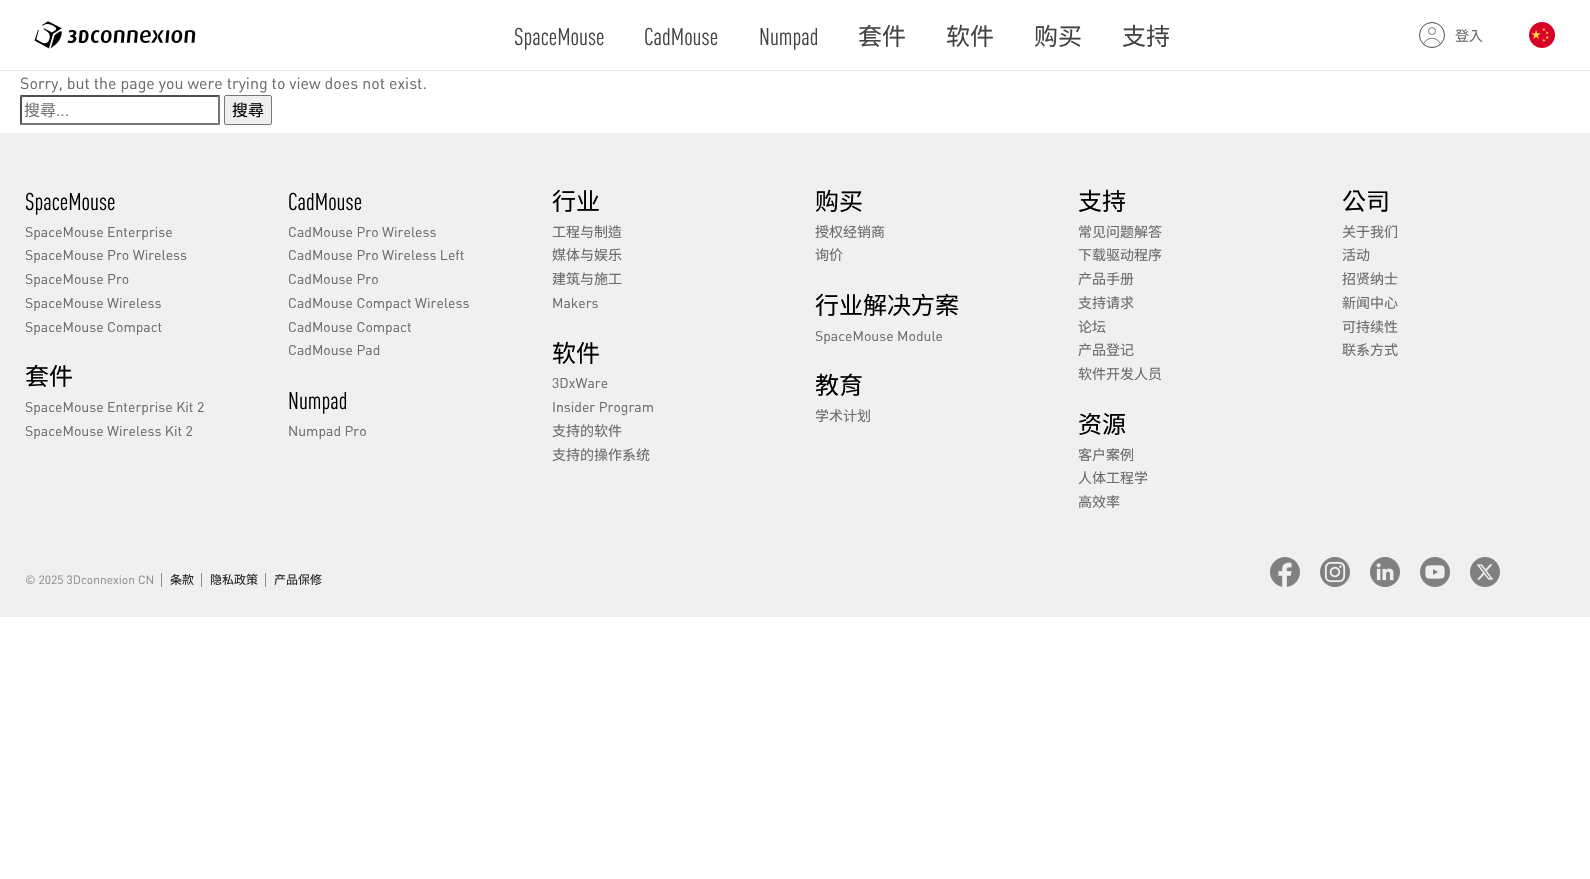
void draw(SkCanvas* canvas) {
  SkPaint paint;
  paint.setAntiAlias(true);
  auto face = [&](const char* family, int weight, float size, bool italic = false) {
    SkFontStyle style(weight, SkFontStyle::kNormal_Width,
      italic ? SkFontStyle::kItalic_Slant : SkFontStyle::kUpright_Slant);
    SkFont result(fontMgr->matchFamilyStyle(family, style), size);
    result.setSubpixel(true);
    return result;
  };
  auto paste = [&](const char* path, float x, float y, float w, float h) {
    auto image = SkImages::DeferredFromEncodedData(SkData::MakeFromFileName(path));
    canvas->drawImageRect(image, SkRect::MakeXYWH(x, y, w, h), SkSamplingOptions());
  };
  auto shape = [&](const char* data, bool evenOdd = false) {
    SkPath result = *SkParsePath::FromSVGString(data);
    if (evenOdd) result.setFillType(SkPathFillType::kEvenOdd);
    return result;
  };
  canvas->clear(0xffffffff);
  paint.setColor(0xffe6e6e6);
  canvas->drawRect(SkRect::MakeXYWH(0, 70, 1590, 1), paint);
  paste("img/1.png", 34, 21, 162, 28);
  paint.setStroke(true);
  paint.setStrokeWidth(1);
  paint.setColor(0xff444c4c);
  canvas->drawCircle(1432, 35, 12.5f, paint);
  paint.setStrokeWidth(0.7f);
  canvas->drawCircle(1432, 31, 3.5f, paint);
  canvas->drawPath(shape("M1423.5 44C1426.5 36.5 1437.5 36.5 1440.5 44"), paint);
  paste("img/2.png", 1529, 22, 26, 26);
  paint.setStroke(false);
  paint.setColor(0xff4f4f4f);
  canvas->drawPath(shape("M20 95H220L218 97H22Z"), paint);
  paint.setColor(0xff767676);
  canvas->drawPath(shape("M220 95V125L218 123V97Z"), paint);
  canvas->drawPath(shape("M220 125H20L22 123H218Z"), paint);
  paint.setColor(0xff4f4f4f);
  canvas->drawPath(shape("M20 125V95L22 97V123Z"), paint);
  paint.setColor(0xffefefef);
  canvas->drawRoundRect(SkRect::MakeXYWH(224.5f, 95.5f, 47, 29), 1.5f, 1.5f, paint);
  paint.setStroke(true);
  paint.setStrokeWidth(1);
  paint.setColor(0xff767676);
  canvas->drawRoundRect(SkRect::MakeXYWH(224.5f, 95.5f, 47, 29), 1.5f, 1.5f, paint);
  paint.setStroke(false);
  {
    const struct { float x, y, w, h; SkColor color; } items[] = {
      {0, 133, 1590, 484, 0xfff0f0f0},
      {161, 573, 1, 14, 0xff909090},
      {201, 573, 1, 14, 0xff909090},
      {265, 573, 1, 14, 0xff909090},
    };
    for (auto [x, y, w, h, color] : items) {
      paint.setColor(color);
      canvas->drawRect(SkRect::MakeXYWH(x, y, w, h), paint);
    }
  }
  paste("img/3.png", 1270, 557, 30, 30);
  paste("img/4.png", 1320, 557, 30, 30);
  paste("img/5.png", 1370, 557, 30, 30);
  paste("img/6.png", 1420, 557, 30, 30);
  paste("img/7.png", 1470, 557, 30, 30);
  auto f0 = face("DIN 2", 400, 24);
  paint.setColor(0xff444444);
  {
    const struct { const char* s; float x, y; } items[] = {
      {"SpaceMouse", 514, 45},
      {"CadMouse", 644, 45},
      {"Numpad", 759, 45},
    };
    for (auto [s, x, y] : items) {
      canvas->drawString(s, x, y, f0, paint);
    }
  }
  auto f1 = face("Noto Sans CJK TC", 400, 24);
  {
    const struct { const char* s; float x, y; } items[] = {
      {"套件", 858, 45},
      {"软件", 946, 45},
      {"购买", 1034, 45},
      {"支持", 1122, 45},
    };
    for (auto [s, x, y] : items) {
      canvas->drawString(s, x, y, f1, paint);
    }
  }
  auto f2 = face("Noto Sans CJK TC", 400, 14);
  paint.setColor(0xff6b6b6b);
  canvas->drawString("登入", 1455, 41, f2, paint);
  auto f3 = face("DIN", 400, 16);
  canvas->drawString("Sorry, but the page you were trying to view does not exist.", 20, 89, f3, paint);
  auto f4 = face("Noto Sans CJK TC", 400, 16);
  paint.setColor(0xff757575);
  canvas->drawString("搜尋", 24, 116, f4, paint);
  canvas->drawString("...", 56, 116, f3, paint);
  paint.setColor(0xff000000);
  canvas->drawString("搜尋", 232, 116, f4, paint);
  canvas->drawString("SpaceMouse", 25, 210, f0, paint);
  auto f5 = face("DIN", 400, 14);
  paint.setColor(0xff6b6b6b);
  {
    const struct { const char* s; float x, y; } items[] = {
      {"SpaceMouse Enterprise", 25, 237},
      {"SpaceMouse Pro Wireless", 25, 260},
      {"SpaceMouse Pro", 25, 284},
      {"SpaceMouse Wireless", 25, 308},
      {"SpaceMouse Compact", 25, 332},
    };
    for (auto [s, x, y] : items) {
      canvas->drawString(s, x, y, f5, paint);
    }
  }
  paint.setColor(0xff000000);
  canvas->drawString("套件", 25, 385, f1, paint);
  paint.setColor(0xff6b6b6b);
  canvas->drawString("SpaceMouse Enterprise Kit 2", 25, 412, f5, paint);
  canvas->drawString("SpaceMouse Wireless Kit 2", 25, 436, f5, paint);
  paint.setColor(0xff000000);
  canvas->drawString("CadMouse", 288, 210, f0, paint);
  paint.setColor(0xff6b6b6b);
  {
    const struct { const char* s; float x, y; } items[] = {
      {"CadMouse Pro Wireless", 288, 237},
      {"CadMouse Pro Wireless Left", 288, 260},
      {"CadMouse Pro", 288, 284},
      {"CadMouse Compact Wireless", 288, 308},
      {"CadMouse Compact", 288, 332},
      {"CadMouse Pad", 288, 355},
    };
    for (auto [s, x, y] : items) {
      canvas->drawString(s, x, y, f5, paint);
    }
  }
  paint.setColor(0xff000000);
  canvas->drawString("Numpad", 288, 409, f0, paint);
  paint.setColor(0xff6b6b6b);
  canvas->drawString("Numpad Pro", 288, 436, f5, paint);
  paint.setColor(0xff000000);
  canvas->drawString("行业", 552, 210, f1, paint);
  paint.setColor(0xff6b6b6b);
  {
    const struct { const char* s; float x, y; } items[] = {
      {"工程与制造", 552, 237},
      {"媒体与娱乐", 552, 260},
      {"建筑与施工", 552, 284},
    };
    for (auto [s, x, y] : items) {
      canvas->drawString(s, x, y, f2, paint);
    }
  }
  canvas->drawString("Makers", 552, 308, f5, paint);
  paint.setColor(0xff000000);
  canvas->drawString("软件", 552, 362, f1, paint);
  paint.setColor(0xff6b6b6b);
  canvas->drawString("3DxWare", 552, 388, f5, paint);
  canvas->drawString("Insider Program", 552, 412, f5, paint);
  canvas->drawString("支持的软件", 552, 436, f2, paint);
  canvas->drawString("支持的操作系统", 552, 460, f2, paint);
  paint.setColor(0xff000000);
  canvas->drawString("购买", 815, 210, f1, paint);
  paint.setColor(0xff6b6b6b);
  canvas->drawString("授权经销商", 815, 237, f2, paint);
  canvas->drawString("询价", 815, 260, f2, paint);
  paint.setColor(0xff000000);
  canvas->drawString("行业解决方案", 815, 314, f1, paint);
  paint.setColor(0xff6b6b6b);
  canvas->drawString("SpaceMouse Module", 815, 341, f5, paint);
  paint.setColor(0xff000000);
  canvas->drawString("教育", 815, 394, f1, paint);
  paint.setColor(0xff6b6b6b);
  canvas->drawString("学术计划", 815, 421, f2, paint);
  paint.setColor(0xff000000);
  canvas->drawString("支持", 1078, 210, f1, paint);
  paint.setColor(0xff6b6b6b);
  {
    const struct { const char* s; float x, y; } items[] = {
      {"常见问题解答", 1078, 237},
      {"下载驱动程序", 1078, 260},
      {"产品手册", 1078, 284},
      {"支持请求", 1078, 308},
      {"论坛", 1078, 332},
      {"产品登记", 1078, 355},
      {"软件开发人员", 1078, 379},
    };
    for (auto [s, x, y] : items) {
      canvas->drawString(s, x, y, f2, paint);
    }
  }
  paint.setColor(0xff000000);
  canvas->drawString("资源", 1078, 433, f1, paint);
  paint.setColor(0xff6b6b6b);
  {
    const struct { const char* s; float x, y; } items[] = {
      {"客户案例", 1078, 460},
      {"人体工程学", 1078, 483},
      {"高效率", 1078, 507},
    };
    for (auto [s, x, y] : items) {
      canvas->drawString(s, x, y, f2, paint);
    }
  }
  paint.setColor(0xff000000);
  canvas->drawString("公司", 1342, 210, f1, paint);
  paint.setColor(0xff6b6b6b);
  {
    const struct { const char* s; float x, y; } items[] = {
      {"关于我们", 1342, 237},
      {"活动", 1342, 260},
      {"招贤纳士", 1342, 284},
      {"新闻中心", 1342, 308},
      {"可持续性", 1342, 332},
      {"联系方式", 1342, 355},
    };
    for (auto [s, x, y] : items) {
      canvas->drawString(s, x, y, f2, paint);
    }
  }
  auto f6 = face("DIN", 400, 12);
  paint.setColor(0xff909090);
  canvas->drawString("© 2025 3Dconnexion CN", 25, 584, f6, paint);
  auto f7 = face("Noto Sans CJK TC", 400, 12);
  paint.setColor(0xff222222);
  {
    const struct { const char* s; float x, y; } items[] = {
      {"条款", 170, 584},
      {"隐私政策", 210, 584},
      {"产品保修", 274, 584},
    };
    for (auto [s, x, y] : items) {
      canvas->drawString(s, x, y, f7, paint);
    }
  }
}
